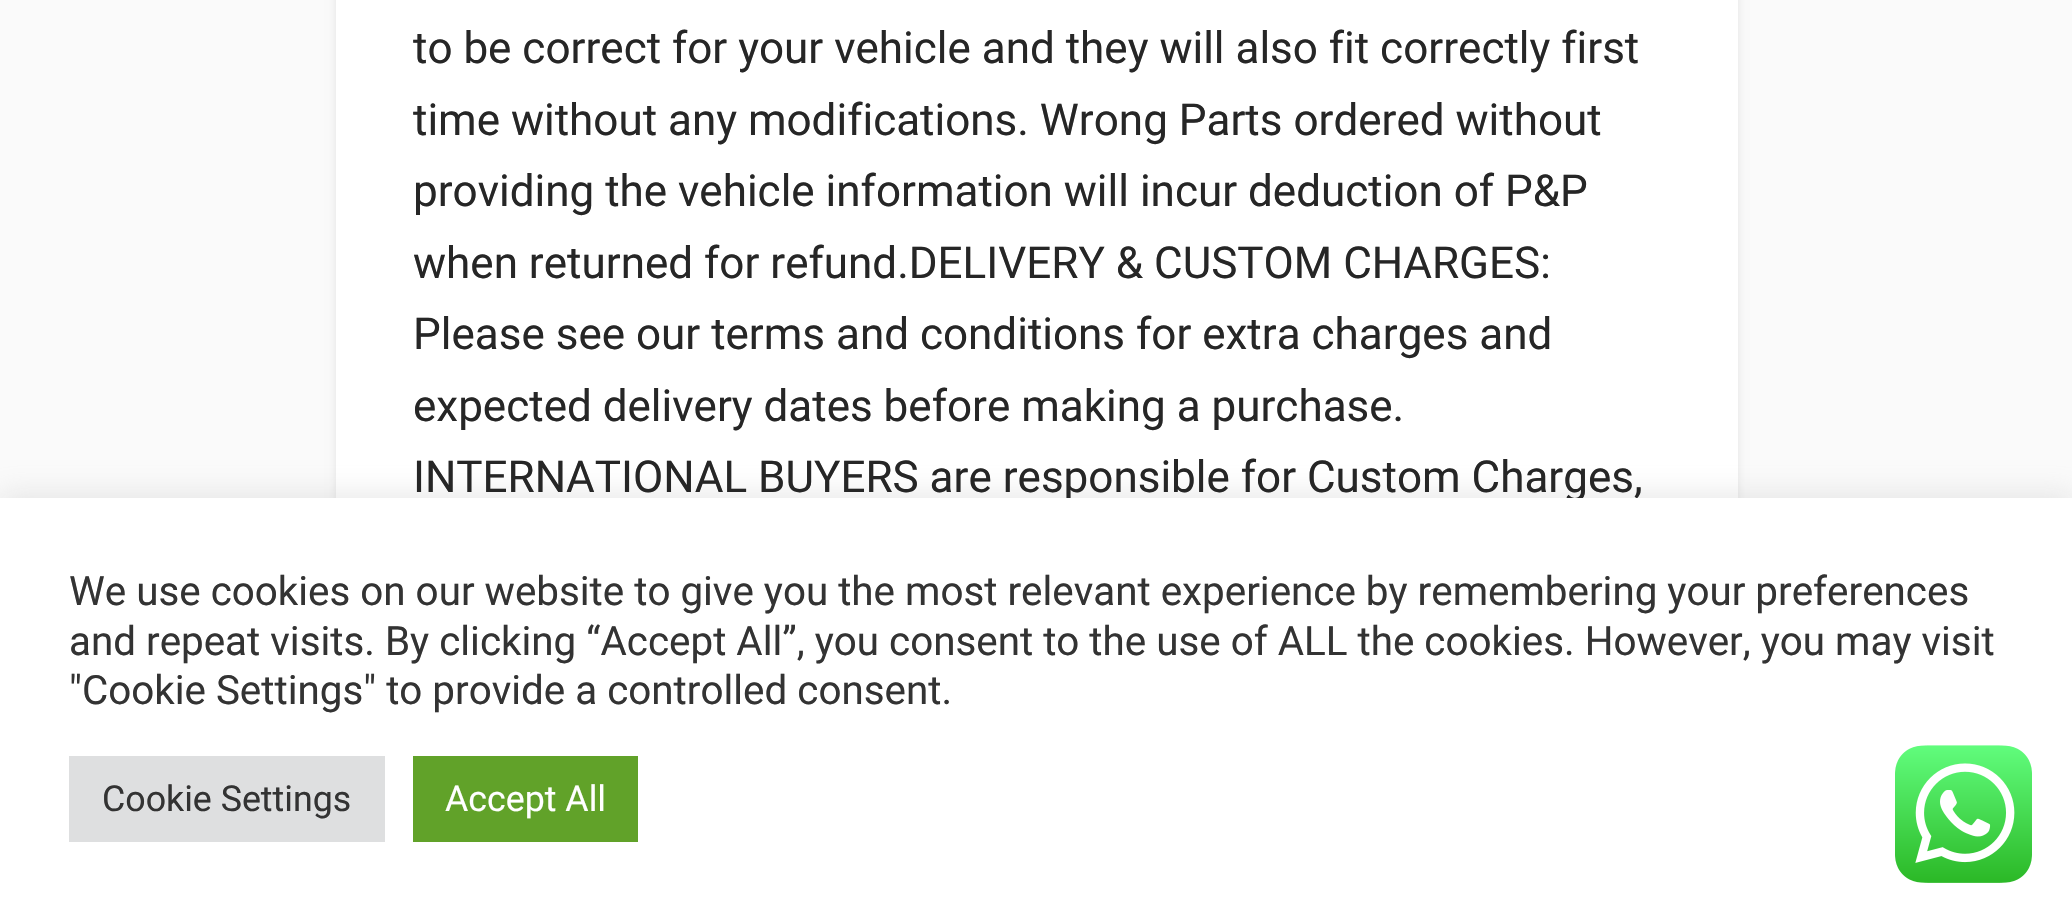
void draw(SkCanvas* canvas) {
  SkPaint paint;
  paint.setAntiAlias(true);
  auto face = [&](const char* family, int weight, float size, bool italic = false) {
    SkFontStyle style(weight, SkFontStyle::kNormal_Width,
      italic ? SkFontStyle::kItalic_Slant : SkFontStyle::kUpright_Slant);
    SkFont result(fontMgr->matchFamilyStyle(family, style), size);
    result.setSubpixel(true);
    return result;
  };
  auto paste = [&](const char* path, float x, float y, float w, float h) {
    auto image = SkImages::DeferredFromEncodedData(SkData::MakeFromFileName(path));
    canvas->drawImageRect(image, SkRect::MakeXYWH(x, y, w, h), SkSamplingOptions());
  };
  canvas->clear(0xfffafafa);
  paint.setColor(0x17000000);
  paint.setMaskFilter(SkMaskFilter::MakeBlur(kNormal_SkBlurStyle, 4));
  canvas->drawRect(SkRect::MakeXYWH(336, -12, 1402, 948), paint);
  paint.setMaskFilter(nullptr);
  paint.setColor(0xffffffff);
  canvas->drawRect(SkRect::MakeXYWH(336, 0, 1402, 498), paint);
  paint.setColor(0x4dacabab);
  paint.setMaskFilter(SkMaskFilter::MakeBlur(kNormal_SkBlurStyle, 14));
  canvas->drawRect(SkRect::MakeXYWH(0, 495, 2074, 426), paint);
  paint.setMaskFilter(nullptr);
  auto f0 = face("Roboto", 400, 44);
  paint.setColor(0xff262626);
  {
    const struct { const char* s; float x, y; } items[] = {
      {"to be correct for your vehicle and they will also fit correctly first", 413, 63},
      {"time without any modifications. Wrong Parts ordered without", 413, 135},
      {"providing the vehicle information will incur deduction of P&P", 413, 206},
      {"when returned for refund.DELIVERY & CUSTOM CHARGES:", 413, 278},
      {"Please see our terms and conditions for extra charges and", 413, 349},
      {"expected delivery dates before making a purchase.", 413, 421},
      {"INTERNATIONAL BUYERS are responsible for Custom Charges,", 413, 492},
    };
    for (auto [s, x, y] : items) {
      canvas->drawString(s, x, y, f0, paint);
    }
  }
  paint.setColor(0xffffffff);
  canvas->drawRect(SkRect::MakeXYWH(0, 498, 2072, 426), paint);
  auto f1 = face("Roboto", 400, 40.35f);
  paint.setColor(0xff333333);
  {
    const struct { const char* s; float x, y; } items[] = {
      {"We use cookies on our website to give you the most relevant experience by remembering your preferences", 69, 605},
      {"and repeat visits. By clicking “Accept All”, you consent to the use of ALL the cookies. However, you may visit", 69, 655},
      {"\"Cookie Settings\" to provide a controlled consent.", 69, 704},
    };
    for (auto [s, x, y] : items) {
      canvas->drawString(s, x, y, f1, paint);
    }
  }
  paint.setColor(0xffdedfe0);
  canvas->drawRect(SkRect::MakeXYWH(69, 756, 316, 86), paint);
  auto f2 = face("Roboto", 400, 35.75f);
  paint.setColor(0xff333333);
  canvas->drawString("Cookie Settings", 102, 811, f2, paint);
  paint.setColor(0xff61a229);
  canvas->drawRect(SkRect::MakeXYWH(413, 756, 225, 86), paint);
  paint.setColor(0xffffffff);
  canvas->drawString("Accept All", 445, 811, f2, paint);
  paste("img/1.png", 1895, 745, 137, 138);
}
